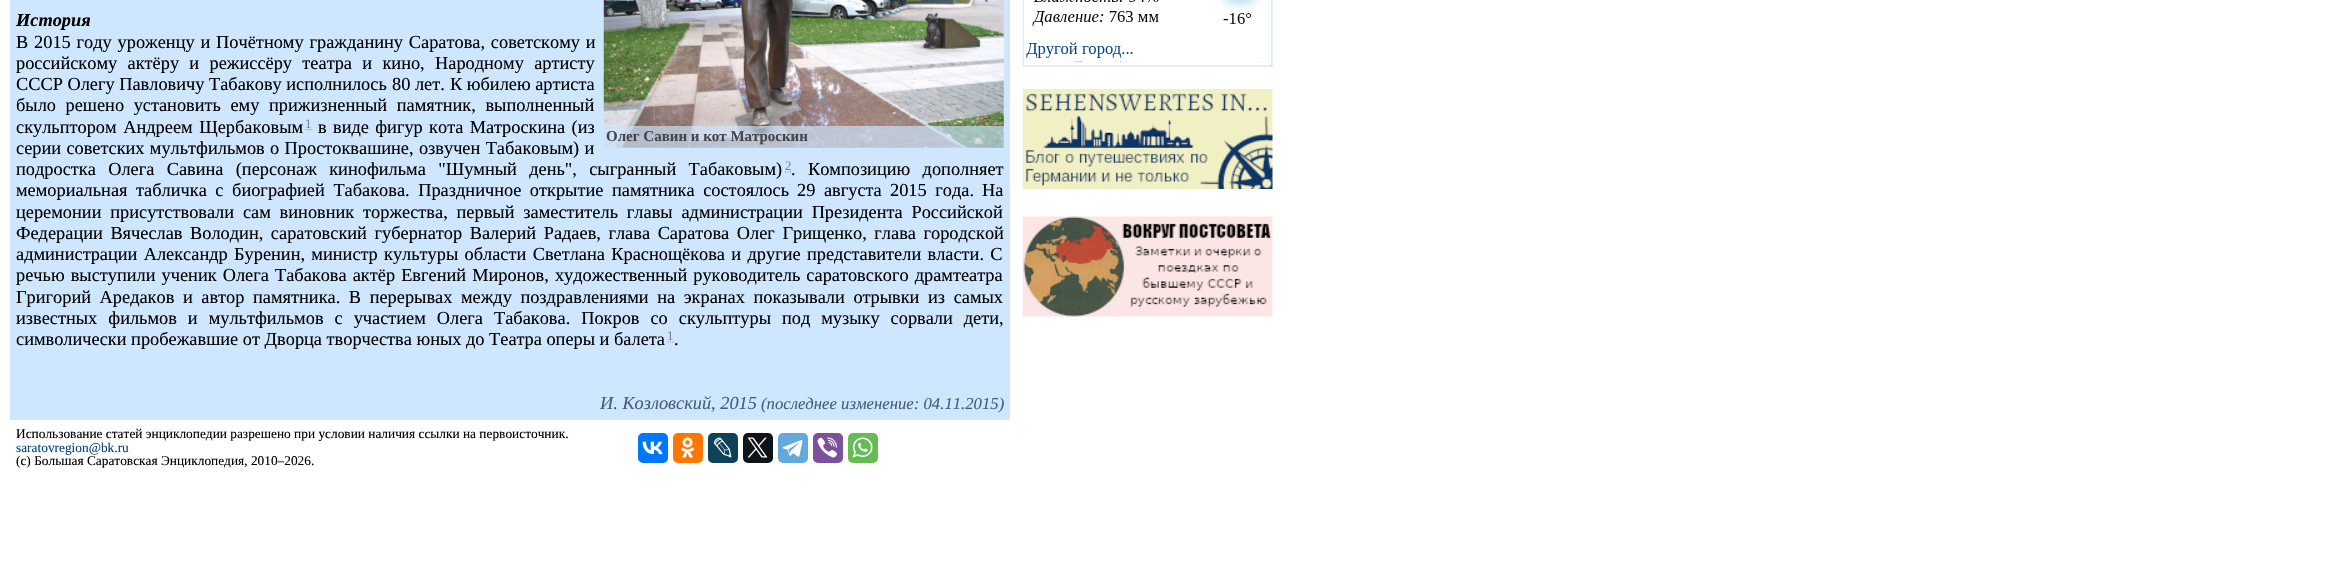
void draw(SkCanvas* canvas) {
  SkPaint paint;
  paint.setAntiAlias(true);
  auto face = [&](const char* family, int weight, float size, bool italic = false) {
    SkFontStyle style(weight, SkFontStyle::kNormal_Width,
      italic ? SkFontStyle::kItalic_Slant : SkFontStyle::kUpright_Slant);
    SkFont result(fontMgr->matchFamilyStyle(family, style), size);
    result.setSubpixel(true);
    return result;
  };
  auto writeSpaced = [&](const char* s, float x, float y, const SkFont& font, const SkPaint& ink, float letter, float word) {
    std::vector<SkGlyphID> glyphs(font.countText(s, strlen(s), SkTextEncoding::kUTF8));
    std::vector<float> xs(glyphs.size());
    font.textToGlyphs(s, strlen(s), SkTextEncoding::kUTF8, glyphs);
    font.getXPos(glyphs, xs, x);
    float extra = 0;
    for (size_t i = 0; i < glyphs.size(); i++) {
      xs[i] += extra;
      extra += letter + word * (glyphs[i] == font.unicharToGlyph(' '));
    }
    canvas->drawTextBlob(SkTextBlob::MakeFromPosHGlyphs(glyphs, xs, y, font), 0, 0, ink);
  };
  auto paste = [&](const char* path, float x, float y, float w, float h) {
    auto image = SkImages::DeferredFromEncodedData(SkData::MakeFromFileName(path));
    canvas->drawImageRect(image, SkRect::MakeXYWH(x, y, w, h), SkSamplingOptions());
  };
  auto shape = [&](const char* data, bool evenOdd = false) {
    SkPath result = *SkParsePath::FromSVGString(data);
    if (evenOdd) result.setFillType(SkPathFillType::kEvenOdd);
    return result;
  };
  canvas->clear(0xffffffff);
  paint.setColor(0xffcee7ff);
  canvas->drawRect(SkRect::MakeXYWH(10, 0, 1000, 420), paint);
  paint.setStroke(true);
  paint.setStrokeWidth(1.2f);
  paint.setColor(0xff7f7f99);
  canvas->drawPath(shape("M305.5 129.5H306.5M308 129.5H309M310.5 129.5H311.5"), paint);
  paste("img/1.png", 603, 0, 401, 148);
  paint.setStroke(false);
  paint.setColor(0xa6cee7ff);
  canvas->drawRect(SkRect::MakeXYWH(604, 126, 400, 22), paint);
  paint.setStroke(true);
  paint.setColor(0xff7f7f99);
  canvas->drawPath(shape("M785 172H786M787.5 172H788.5M790 172H791"), paint);
  canvas->drawPath(shape("M667.5 342H668.5M670 342H671M672.5 342H673.5"), paint);
  paste("img/2.png", 1022, 0, 251, 317);
  paint.setStroke(false);
  paint.setColor(0xff0077ff);
  canvas->drawRoundRect(SkRect::MakeXYWH(638, 433, 30, 30), 5, 5, paint);
  paste("img/3.png", 642, 441, 21, 14);
  paint.setColor(0xffff7700);
  canvas->drawRoundRect(SkRect::MakeXYWH(673, 433, 30, 30), 5, 5, paint);
  paste("img/4.png", 680, 437, 15, 21);
  paint.setColor(0xff0d425a);
  canvas->drawRoundRect(SkRect::MakeXYWH(708, 433, 30, 30), 5, 5, paint);
  paste("img/5.png", 713, 437, 19, 21);
  paint.setColor(0xff0f1419);
  canvas->drawRoundRect(SkRect::MakeXYWH(743, 433, 30, 30), 5, 5, paint);
  paste("img/6.png", 747, 437, 21, 21);
  paint.setColor(0xff64a9dc);
  canvas->drawRoundRect(SkRect::MakeXYWH(778, 433, 30, 30), 5, 5, paint);
  paste("img/7.png", 782, 440, 21, 17);
  paint.setColor(0xff7b519d);
  canvas->drawRoundRect(SkRect::MakeXYWH(813, 433, 30, 30), 5, 5, paint);
  paste("img/8.png", 817, 437, 20, 21);
  paint.setColor(0xff65bc54);
  canvas->drawRoundRect(SkRect::MakeXYWH(848, 433, 30, 30), 5, 5, paint);
  paste("img/9.png", 852, 437, 21, 21);
  auto f0 = face("Liberation Serif", 700, 18.33f, true);
  paint.setColor(0xff000000);
  canvas->drawString("История", 16, 26, f0, paint);
  auto f1 = face("Liberation Serif", 400, 18.33f);
  writeSpaced("В 2015 году уроженцу и Почётному гражданину Саратова, советскому и", 16, 48, f1, paint, 0, 1.25f);
  writeSpaced("российскому актёру и режиссёру театра и кино, Народному артисту", 16, 69, f1, paint, 0, 5.75f);
  {
    const struct { const char* s; float x, y; } items[] = {
      {"СССР Олегу Павловичу Табакову исполнилось", 16, 90},
      {"80 лет.", 392, 90},
      {"К юбилею артиста", 450, 90},
    };
    for (auto [s, x, y] : items) {
      canvas->drawString(s, x, y, f1, paint);
    }
  }
  writeSpaced("было решено установить ему прижизненный памятник, выполненный", 16, 111, f1, paint, 0, 5);
  writeSpaced("скульптором Андреем Щербаковым", 16, 133, f1, paint, 0, 2);
  auto f2 = face("Liberation Serif", 400, 13);
  paint.setColor(0xff7f7f99);
  canvas->drawString("1", 305, 128, f2, paint);
  paint.setColor(0xff000000);
  writeSpaced("в виде фигур кота Матроскина (из", 318, 133, f1, paint, 0, 1.75f);
  auto f3 = face("Liberation Serif", 700, 15);
  paint.setColor(0xff43474c);
  canvas->drawString("Олег Савин и кот Матроскин", 606, 141, f3, paint);
  paint.setColor(0xff000000);
  writeSpaced("серии советских мультфильмов о Простоквашине, озвучен Табаковым) и", 16, 154, f1, paint, 0, 0.75f);
  writeSpaced("подростка Олега Савина (персонаж кинофильма \"Шумный день\", сыгранный Табаковым)", 16, 175, f1, paint, 0, 7.75f);
  paint.setColor(0xff7f7f99);
  canvas->drawString("2", 785, 170, f2, paint);
  paint.setColor(0xff000000);
  writeSpaced(". Композицию дополняет", 791, 175, f1, paint, 0, 7.75f);
  {
    const struct { const char* s; float x, y; } items[] = {
      {"мемориальная табличка с биографией Табакова. Праздничное открытие памятника состоялось", 16, 196},
      {"29 августа", 797, 196},
      {"2015 года.", 890, 196},
    };
    for (auto [s, x, y] : items) {
      writeSpaced(s, x, y, f1, paint, 0, 4);
    }
  }
  canvas->drawString("На", 982, 196, f1, paint);
  writeSpaced("церемонии присутствовали сам виновник торжества, первый заместитель главы администрации Президента Российской", 16, 218, f1, paint, 0, 4.25f);
  writeSpaced("Федерации Вячеслав Володин, саратовский губернатор Валерий Радаев, глава Саратова Олег Грищенко, глава городской", 16, 239, f1, paint, 0, 3);
  writeSpaced("администрации Александр Буренин, министр культуры области Светлана Краснощёкова и другие представители власти. С", 16, 260, f1, paint, 0, 1.75f);
  writeSpaced("речью выступили ученик Олега Табакова актёр Евгений Миронов, художественный руководитель саратовского драмтеатра", 16, 281, f1, paint, 0, 1.5f);
  writeSpaced("Григорий Аредаков и автор памятника. В перерывах между поздравлениями на экранах показывали отрывки из самых", 16, 303, f1, paint, 0, 4);
  writeSpaced("известных фильмов и мультфильмов с участием Олега Табакова. Покров со скульптуры под музыку сорвали дети,", 16, 324, f1, paint, 0, 6.4f);
  canvas->drawString("символически пробежавшие от Дворца творчества юных до Театра оперы и балета", 16, 345, f1, paint);
  paint.setColor(0xff7f7f99);
  canvas->drawString("1", 667, 340, f2, paint);
  paint.setColor(0xff000000);
  canvas->drawString(".", 674, 345, f1, paint);
  auto f4 = face("Liberation Serif", 400, 18.33f, true);
  paint.setColor(0xff495a7c);
  canvas->drawString("И. Козловский, 2015", 600, 409, f4, paint);
  auto f5 = face("Liberation Serif", 400, 16.7f, true);
  canvas->drawString("(последнее изменение: 04.11.2015)", 761, 409, f5, paint);
  auto f6 = face("Liberation Serif", 400, 13.35f);
  paint.setColor(0xff000000);
  canvas->drawString("Использование статей энциклопедии разрешено при условии наличия ссылки на первоисточник.", 16, 438, f6, paint);
  paint.setColor(0xff054285);
  canvas->drawString("saratovregion@bk.ru", 16, 452, f6, paint);
  paint.setColor(0xff000000);
  canvas->drawString("(c) Большая Саратовская Энциклопедия, 2010–2026.", 16, 465, f6, paint);
}
